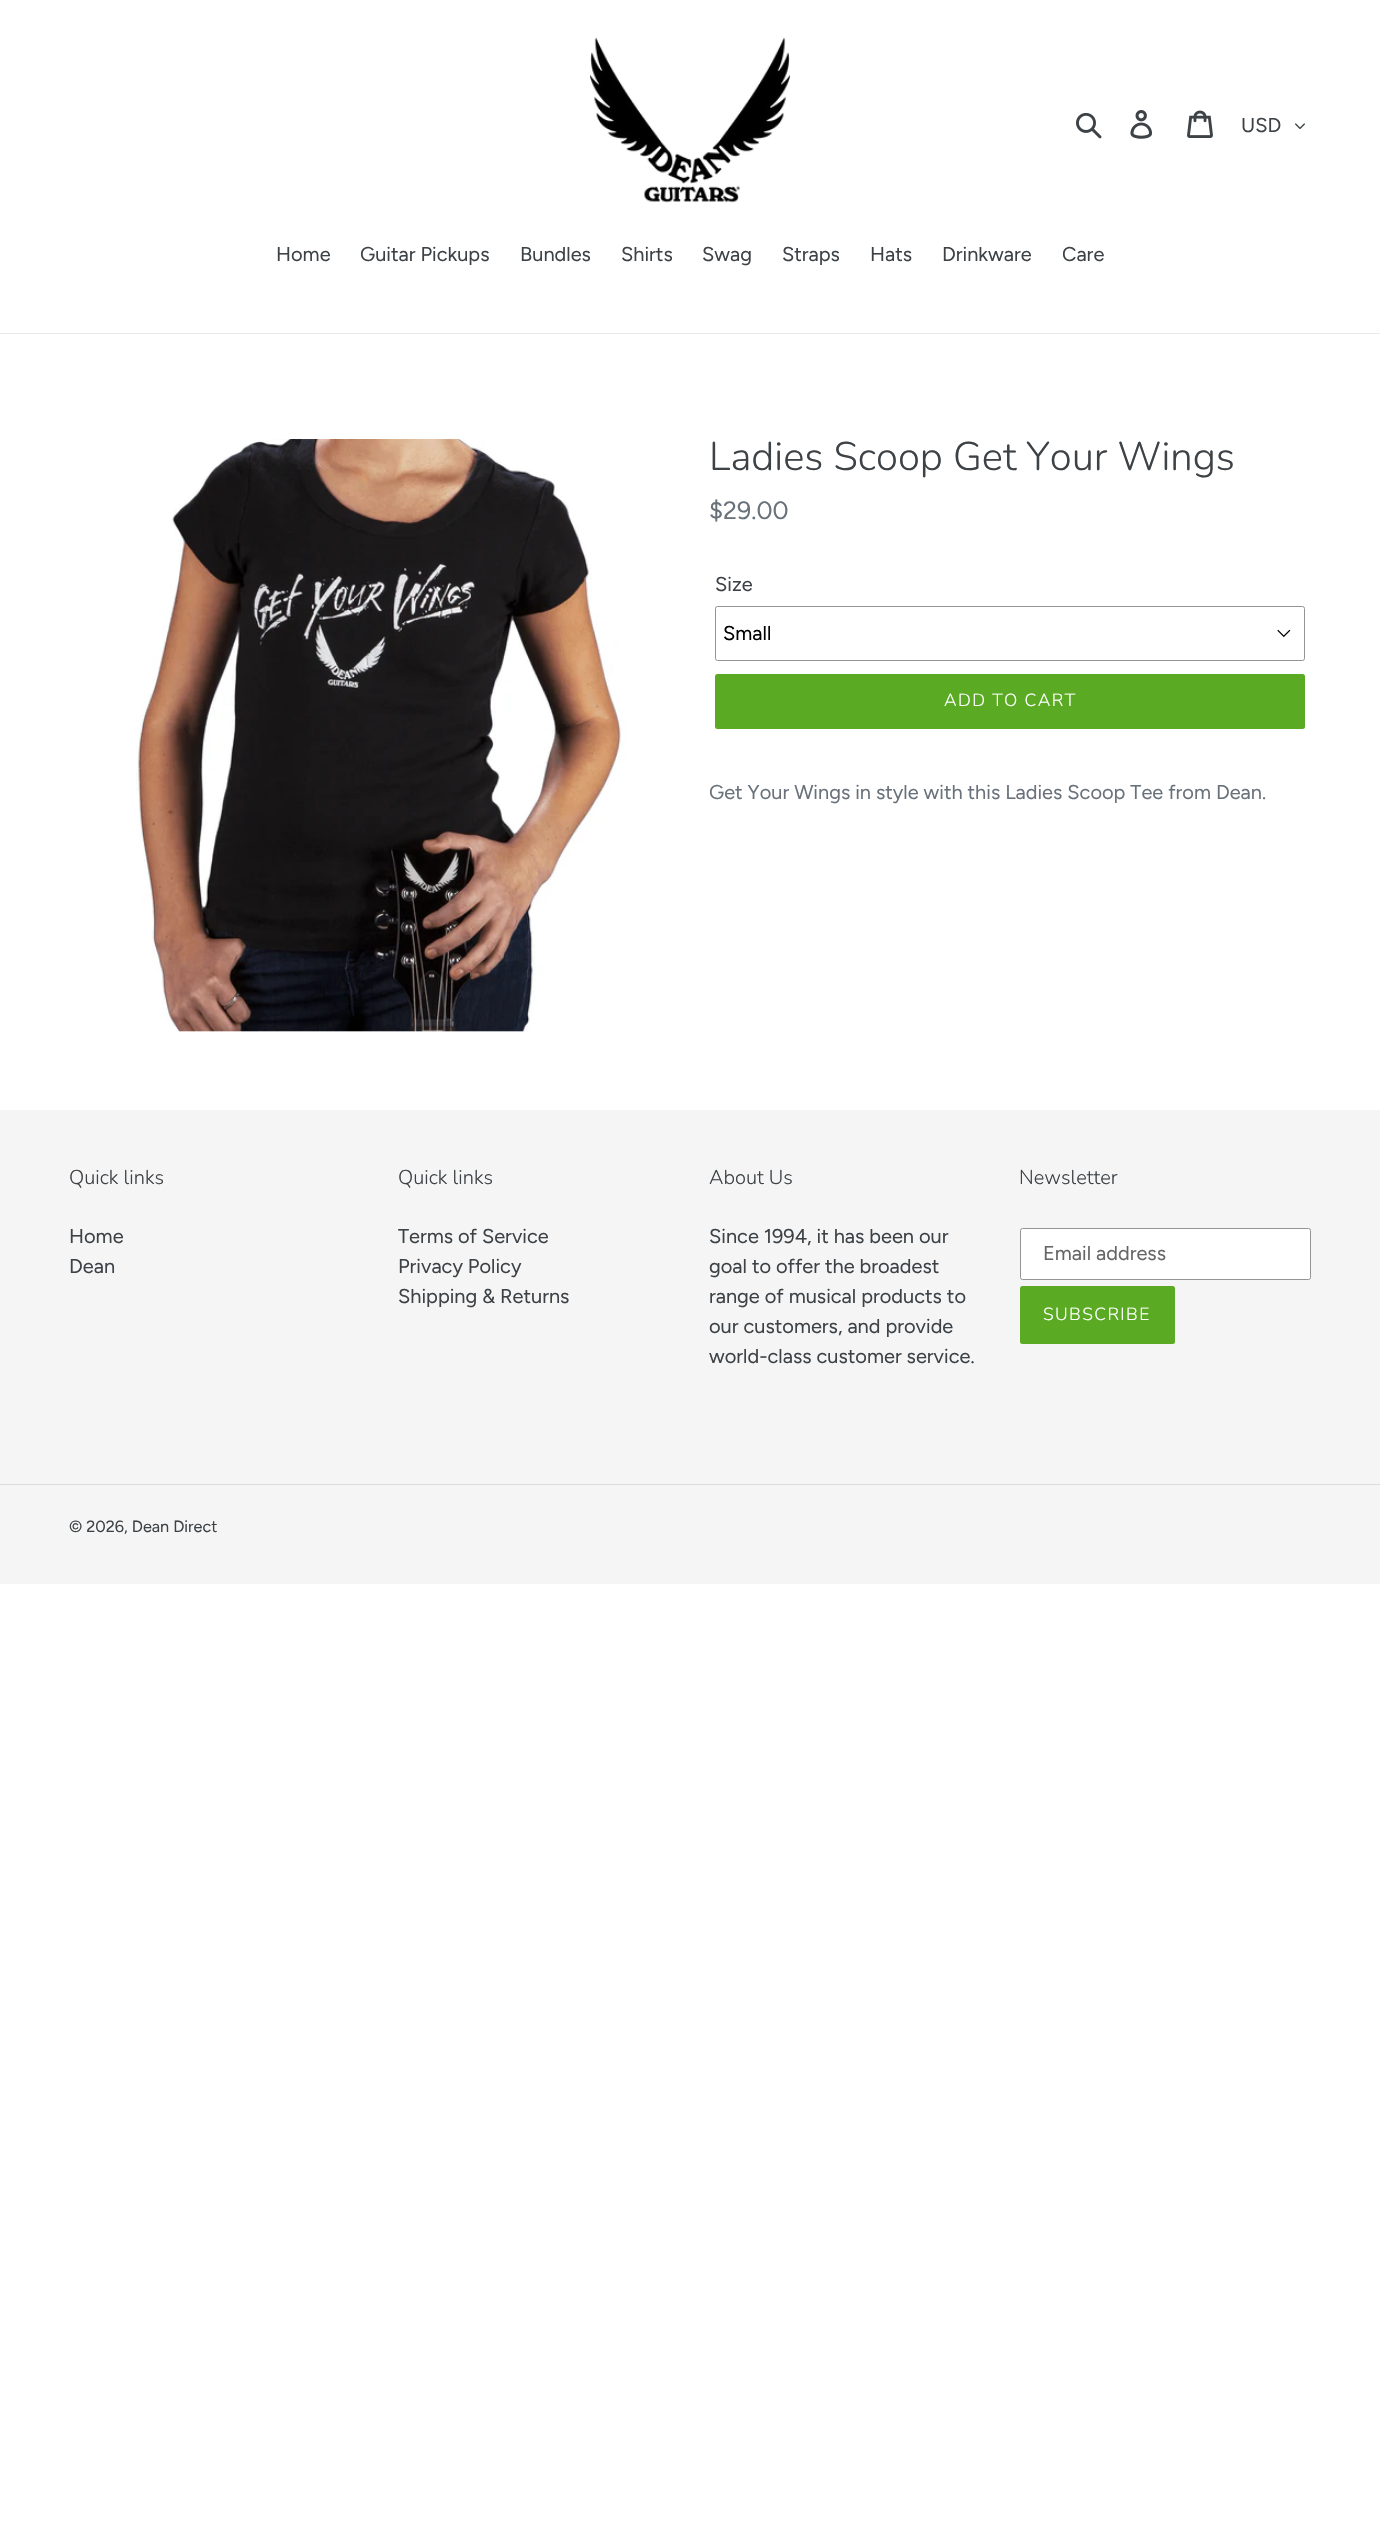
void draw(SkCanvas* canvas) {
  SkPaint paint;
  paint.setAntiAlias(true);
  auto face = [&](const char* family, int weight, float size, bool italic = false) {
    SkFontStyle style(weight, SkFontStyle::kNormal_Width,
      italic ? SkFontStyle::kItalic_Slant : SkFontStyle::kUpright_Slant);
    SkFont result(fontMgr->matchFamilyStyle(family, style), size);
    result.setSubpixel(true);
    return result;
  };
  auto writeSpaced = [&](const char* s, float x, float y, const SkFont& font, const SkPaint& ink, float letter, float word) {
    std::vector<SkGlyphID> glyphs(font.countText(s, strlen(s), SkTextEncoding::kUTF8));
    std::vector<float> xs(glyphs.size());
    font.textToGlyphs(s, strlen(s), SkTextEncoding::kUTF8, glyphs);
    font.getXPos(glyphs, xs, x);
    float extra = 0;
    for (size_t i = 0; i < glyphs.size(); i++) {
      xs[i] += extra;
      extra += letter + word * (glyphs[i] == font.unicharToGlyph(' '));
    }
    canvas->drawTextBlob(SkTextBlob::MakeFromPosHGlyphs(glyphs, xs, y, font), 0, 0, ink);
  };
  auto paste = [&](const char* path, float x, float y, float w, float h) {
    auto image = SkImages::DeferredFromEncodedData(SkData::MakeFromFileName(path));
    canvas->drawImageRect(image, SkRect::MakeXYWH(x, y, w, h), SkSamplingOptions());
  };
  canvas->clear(0xffffffff);
  paste("img/1.png", 590, 37, 200, 166);
  paste("img/2.png", 1076, 112, 26, 27);
  paste("img/3.png", 1130, 110, 23, 29);
  paste("img/4.png", 1187, 110, 26, 28);
  paste("img/5.png", 1295, 123, 10, 6);
  paint.setColor(0xffe8e9eb);
  canvas->drawRect(SkRect::MakeXYWH(0, 333, 1380, 1), paint);
  paste("img/6.png", 136, 439, 491, 593);
  paste("img/7.png", 1277, 629, 14, 9);
  paint.setStroke(true);
  paint.setStrokeWidth(1);
  paint.setColor(0xff949494);
  canvas->drawRoundRect(SkRect::MakeXYWH(715.5f, 606.5f, 589, 54), 2, 2, paint);
  paint.setStroke(false);
  paint.setColor(0xff5aab23);
  canvas->drawRoundRect(SkRect::MakeXYWH(715, 674, 590, 55), 2.5f, 2.5f, paint);
  paint.setColor(0xfff5f5f5);
  canvas->drawRect(SkRect::MakeXYWH(0, 1110, 1380, 474), paint);
  paint.setColor(0xffffffff);
  canvas->drawRoundRect(SkRect::MakeXYWH(1020.5f, 1228.5f, 290, 51), 2, 2, paint);
  paint.setStroke(true);
  paint.setColor(0xff949494);
  canvas->drawRoundRect(SkRect::MakeXYWH(1020.5f, 1228.5f, 290, 51), 2, 2, paint);
  paint.setStroke(false);
  paint.setColor(0xff5aab23);
  canvas->drawRoundRect(SkRect::MakeXYWH(1020, 1286, 155, 58), 2.5f, 2.5f, paint);
  paint.setColor(0xffdcdcdc);
  canvas->drawRect(SkRect::MakeXYWH(0, 1484, 1380, 1), paint);
  auto f0 = face("Figtree", 400, 20);
  paint.setColor(0xff3d4246);
  {
    const struct { const char* s; float x, y; } items[] = {
      {"USD", 1241, 132},
      {"Home", 276, 261},
      {"Guitar Pickups", 360, 261},
      {"Bundles", 520, 261},
      {"Shirts", 621, 261},
      {"Swag", 702, 261},
      {"Straps", 782, 261},
      {"Hats", 870, 261},
      {"Drinkware", 942, 261},
      {"Care", 1062, 261},
    };
    for (auto [s, x, y] : items) {
      canvas->drawString(s, x, y, f0, paint);
    }
  }
  auto f1 = face("Nunito", 300, 40);
  canvas->drawString("Ladies Scoop Get Your Wings", 709, 470, f1, paint);
  auto f2 = face("Figtree", 400, 25);
  paint.setColor(0xff69727b);
  canvas->drawString("$29.00", 709, 519, f2, paint);
  paint.setColor(0xff3d4246);
  canvas->drawString("Size", 715, 591, f0, paint);
  paint.setColor(0xff000000);
  canvas->drawString("Small", 723, 640, f0, paint);
  auto f3 = face("Nunito", 300, 17.5f);
  paint.setColor(0xffffffff);
  writeSpaced("ADD TO CART", 944, 706, f3, paint, 1.4f, 0);
  paint.setColor(0xff69727b);
  canvas->drawString("Get Your Wings in style with this Ladies Scoop Tee from Dean.", 709, 799, f0, paint);
  auto f4 = face("Nunito", 300, 20);
  paint.setColor(0xff3d4246);
  canvas->drawString("Quick links", 69, 1184, f4, paint);
  canvas->drawString("Home", 69, 1243, f0, paint);
  canvas->drawString("Dean", 69, 1273, f0, paint);
  canvas->drawString("Quick links", 398, 1184, f4, paint);
  {
    const struct { const char* s; float x, y; } items[] = {
      {"Terms of Service", 398, 1243},
      {"Privacy Policy", 398, 1273},
      {"Shipping & Returns", 398, 1303},
    };
    for (auto [s, x, y] : items) {
      canvas->drawString(s, x, y, f0, paint);
    }
  }
  canvas->drawString("About Us", 709, 1184, f4, paint);
  {
    const struct { const char* s; float x, y; } items[] = {
      {"Since 1994, it has been our", 709, 1243},
      {"goal to offer the broadest", 709, 1273},
      {"range of musical products to", 709, 1303},
      {"our customers, and provide", 709, 1333},
      {"world-class customer service.", 709, 1363},
    };
    for (auto [s, x, y] : items) {
      canvas->drawString(s, x, y, f0, paint);
    }
  }
  canvas->drawString("Newsletter", 1019, 1184, f4, paint);
  paint.setColor(0xff666666);
  canvas->drawString("Email address", 1043, 1260, f0, paint);
  paint.setColor(0xffffffff);
  writeSpaced("SUBSCRIBE", 1043, 1320, f3, paint, 1.4f, 0);
  auto f5 = face("Figtree", 400, 16.25f);
  paint.setColor(0xff3d4246);
  canvas->drawString("© 2026, Dean Direct", 69, 1532, f5, paint);
}
